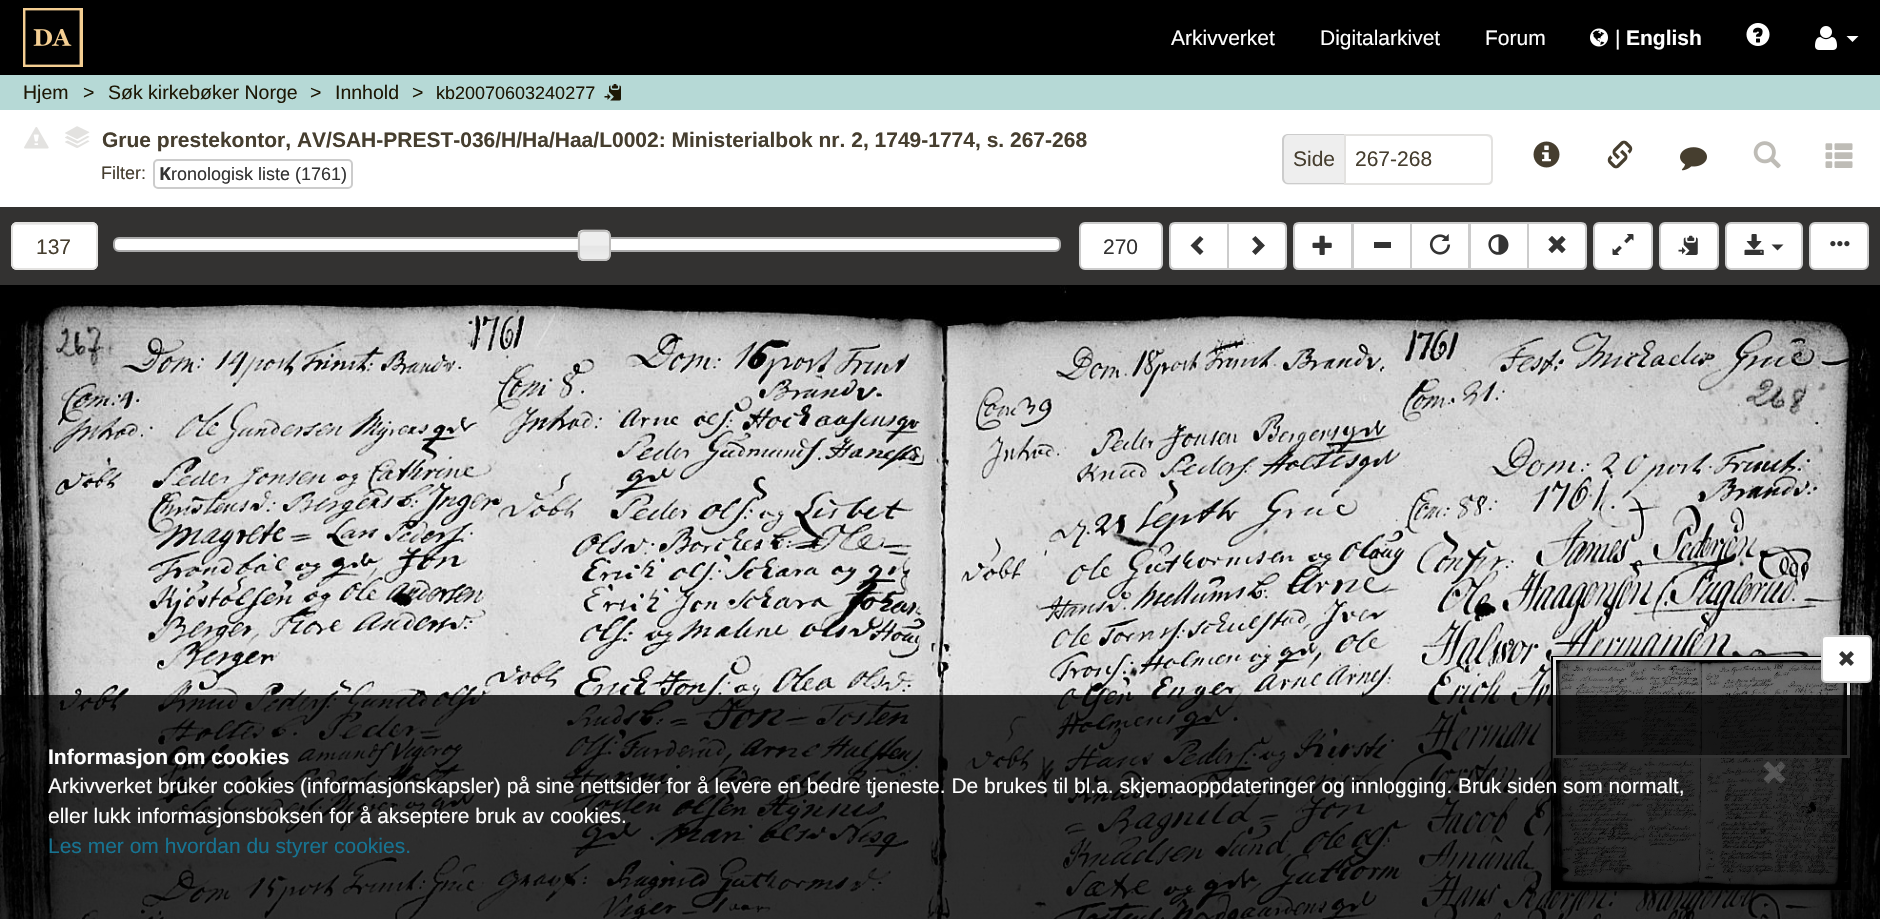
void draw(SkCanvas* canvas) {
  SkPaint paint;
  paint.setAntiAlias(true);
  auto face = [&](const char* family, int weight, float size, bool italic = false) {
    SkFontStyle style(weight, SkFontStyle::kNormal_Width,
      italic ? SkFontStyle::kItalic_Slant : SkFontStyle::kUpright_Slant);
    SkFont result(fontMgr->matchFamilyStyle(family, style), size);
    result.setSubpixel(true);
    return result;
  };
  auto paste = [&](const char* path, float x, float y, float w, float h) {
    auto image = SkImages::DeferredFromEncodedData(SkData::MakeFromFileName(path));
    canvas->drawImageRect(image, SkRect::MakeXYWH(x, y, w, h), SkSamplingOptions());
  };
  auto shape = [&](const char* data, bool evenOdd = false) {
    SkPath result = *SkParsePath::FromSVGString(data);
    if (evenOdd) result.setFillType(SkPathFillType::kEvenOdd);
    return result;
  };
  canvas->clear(0xffb6d9d6);
  paint.setColor(0xff000000);
  canvas->drawRect(SkRect::MakeXYWH(0, 0, 1880, 75), paint);
  paste("img/1.png", 23, 8, 60, 59);
  paste("img/2.png", 1590, 28, 18, 19);
  paste("img/3.png", 1746, 23, 24, 23);
  paste("img/4.png", 1815, 26, 22, 24);
  paint.setColor(0xffffffff);
  canvas->drawPath(shape("M1846.5 36H1858.5L1852.5 42Z"), paint);
  paste("img/5.png", 604, 84, 17, 17);
  canvas->drawRect(SkRect::MakeXYWH(0, 110, 1880, 97), paint);
  paste("img/6.png", 24, 127, 25, 22);
  paste("img/11.png", 65, 140, 25, 8);
  paste("img/10.png", 67, 137, 21, 9);
  paste("img/9.png", 65, 135, 25, 9);
  paste("img/8.png", 68, 133, 20, 8);
  paste("img/7.png", 65, 126, 25, 13);
  paint.setStroke(true);
  paint.setStrokeWidth(2);
  paint.setColor(0xffcccccc);
  canvas->drawRoundRect(SkRect::MakeXYWH(154, 160, 198, 28), 4, 4, paint);
  paint.setStroke(false);
  paint.setColor(0xffeeeeee);
  canvas->drawPath(shape("M1289 134H1344V185H1289C1285.5 185 1283 182.5 1283 179V140C1283 136.5 1285.5 134 1289 134Z"), paint);
  paint.setColor(0xffcccccc);
  canvas->drawPath(shape("M1288 134H1344V184H1288C1285 184 1282 182 1282 178V140C1282 136 1285 134 1288 134ZM1288 135H1344V183H1288C1286 183 1284 181 1284 178V140C1284 137 1286 135 1288 135Z", true), paint);
  paint.setColor(0xffececec);
  canvas->drawPath(shape("M1346 136H1486C1489 136 1491 139 1491 141V140C1491 137 1489 135 1486 135H1346Z"), paint);
  paint.setStroke(true);
  paint.setColor(0xffe3e2e0);
  canvas->drawPath(shape("M1345 135H1487C1490 135 1492 137 1492 140V179C1492 182 1490 184 1487 184H1345Z"), paint);
  paste("img/12.png", 1533, 141, 27, 27);
  paste("img/13.png", 1607, 140, 26, 29);
  paste("img/14.png", 1680, 147, 27, 24);
  paste("img/15.png", 1753, 141, 28, 28);
  paste("img/16.png", 1825, 143, 28, 25);
  paint.setStroke(false);
  paint.setColor(0xff333231);
  canvas->drawRect(SkRect::MakeXYWH(0, 207, 1880, 78), paint);
  paint.setColor(0xffffffff);
  canvas->drawRoundRect(SkRect::MakeXYWH(11, 222, 87, 48), 6, 6, paint);
  paint.setColor(0xffececec);
  canvas->drawPath(shape("M16 225H92C94 225 96 227 96 230C96 221 84 224 79 224H29C24 224 12 221 12 230C12 227 14 225 16 225Z"), paint);
  paint.setStroke(true);
  paint.setColor(0xffe3e2e0);
  canvas->drawRoundRect(SkRect::MakeXYWH(12, 223, 85, 46), 5, 5, paint);
  paint.setStroke(false);
  paint.setColor(0xffffffff);
  canvas->drawRoundRect(SkRect::MakeXYWH(114, 238, 946, 13), 5, 5, paint);
  paint.setStroke(true);
  paint.setColor(0xffaaaaaa);
  canvas->drawRoundRect(SkRect::MakeXYWH(114, 238, 946, 13), 5, 5, paint);
  paste("img/17.png", 577, 229, 34, 32);
  paint.setColor(0xffbfbebd);
  canvas->drawRoundRect(SkRect::MakeXYWH(579, 231, 31, 29), 5, 5, paint);
  paint.setStroke(false);
  paint.setColor(0xffffffff);
  canvas->drawRoundRect(SkRect::MakeXYWH(1080, 223, 82, 46), 5, 5, paint);
  paint.setStroke(true);
  paint.setColor(0xffcccccc);
  canvas->drawRoundRect(SkRect::MakeXYWH(1080, 223, 82, 46), 5, 5, paint);
  paint.setStroke(false);
  paint.setColor(0xffffffff);
  canvas->drawPath(shape("M1175 223H1228V269H1175C1172 269 1170 267 1170 264V228C1170 225 1172 223 1175 223Z"), paint);
  paint.setStroke(true);
  paint.setColor(0xffcccccc);
  canvas->drawPath(shape("M1175 223H1228V269H1175C1172 269 1170 267 1170 264V228C1170 225 1172 223 1175 223Z"), paint);
  paint.setStroke(false);
  paint.setColor(0xff333333);
  canvas->drawPath(shape("M1203.5 239L1197.5 245.5L1203.5 251.5L1200 255L1190.5 245.5L1200 236Z"), paint);
  paint.setColor(0xffffffff);
  canvas->drawPath(shape("M1228 223H1281C1284 223 1286 225 1286 228V264C1286 267 1284 269 1281 269H1228Z"), paint);
  paint.setStroke(true);
  paint.setColor(0xffcccccc);
  canvas->drawPath(shape("M1228 223H1281C1284 223 1286 225 1286 228V264C1286 267 1284 269 1281 269H1228Z"), paint);
  paint.setStroke(false);
  paint.setColor(0xff333333);
  canvas->drawPath(shape("M1265 245.5L1255.5 255L1252 251.5L1258 245.5L1252 239L1255.5 236Z"), paint);
  paint.setColor(0xffffffff);
  canvas->drawPath(shape("M1299 223H1352V269H1299C1296 269 1294 267 1294 264V228C1294 225 1296 223 1299 223Z"), paint);
  paint.setStroke(true);
  paint.setColor(0xffcccccc);
  canvas->drawPath(shape("M1299 223H1352V269H1299C1296 269 1294 267 1294 264V228C1294 225 1296 223 1299 223Z"), paint);
  paste("img/18.png", 1312, 235, 20, 20);
  paint.setStroke(false);
  paint.setColor(0xffffffff);
  canvas->drawRect(SkRect::MakeXYWH(1353, 223, 58, 46), paint);
  paint.setStroke(true);
  paint.setColor(0xffcccccc);
  canvas->drawRect(SkRect::MakeXYWH(1353, 223, 58, 46), paint);
  paint.setStroke(false);
  paint.setColor(0xff333333);
  canvas->drawRect(SkRect::MakeXYWH(1374, 242, 17, 6), paint);
  paint.setColor(0xffffffff);
  canvas->drawRect(SkRect::MakeXYWH(1411, 223, 58, 46), paint);
  paint.setStroke(true);
  paint.setColor(0xffcccccc);
  canvas->drawRect(SkRect::MakeXYWH(1411, 223, 58, 46), paint);
  paste("img/19.png", 1429, 234, 22, 21);
  paint.setStroke(false);
  paint.setColor(0xffffffff);
  canvas->drawRect(SkRect::MakeXYWH(1470, 223, 58, 46), paint);
  paint.setStroke(true);
  paint.setColor(0xffcccccc);
  canvas->drawRect(SkRect::MakeXYWH(1470, 223, 58, 46), paint);
  paint.setStroke(false);
  paint.setColor(0xff333333);
  canvas->drawPath(shape("M1494.5 235C1507 230 1514.5 248.5 1502.5 254C1490 259 1482.5 240.5 1494.5 235ZM1498.5 252V237C1488.5 237 1488.5 252 1498.5 252Z"), paint);
  paint.setColor(0xffffffff);
  canvas->drawPath(shape("M1528 223H1581C1584 223 1586 225 1586 228V264C1586 267 1584 269 1581 269H1528Z"), paint);
  paint.setStroke(true);
  paint.setColor(0xffcccccc);
  canvas->drawPath(shape("M1528 223H1581C1584 223 1586 225 1586 228V264C1586 267 1584 269 1581 269H1528Z"), paint);
  paste("img/20.png", 1548, 236, 18, 17);
  paint.setStroke(false);
  paint.setColor(0xffffffff);
  canvas->drawRoundRect(SkRect::MakeXYWH(1594, 223, 58, 46), 5, 5, paint);
  paint.setStroke(true);
  paint.setColor(0xffcccccc);
  canvas->drawRoundRect(SkRect::MakeXYWH(1594, 223, 58, 46), 5, 5, paint);
  paste("img/21.png", 1612, 234, 22, 21);
  paint.setStroke(false);
  paint.setColor(0xffffffff);
  canvas->drawRoundRect(SkRect::MakeXYWH(1660, 223, 58, 46), 5, 5, paint);
  paint.setStroke(true);
  paint.setColor(0xffcccccc);
  canvas->drawRoundRect(SkRect::MakeXYWH(1660, 223, 58, 46), 5, 5, paint);
  paste("img/22.png", 1678, 235, 20, 20);
  paint.setStroke(false);
  paint.setColor(0xffffffff);
  canvas->drawRoundRect(SkRect::MakeXYWH(1726, 223, 76, 46), 5, 5, paint);
  paint.setStroke(true);
  paint.setColor(0xffcccccc);
  canvas->drawRoundRect(SkRect::MakeXYWH(1726, 223, 76, 46), 5, 5, paint);
  paste("img/23.png", 1744, 234, 20, 21);
  paint.setStroke(false);
  paint.setColor(0xff333333);
  canvas->drawPath(shape("M1771.5 244.5H1783.5L1777.5 250.5Z"), paint);
  paint.setColor(0xffffffff);
  canvas->drawRoundRect(SkRect::MakeXYWH(1810, 223, 58, 46), 5, 5, paint);
  paint.setStroke(true);
  paint.setColor(0xffcccccc);
  canvas->drawRoundRect(SkRect::MakeXYWH(1810, 223, 58, 46), 5, 5, paint);
  paste("img/24.png", 1830, 241, 20, 6);
  paste("img/25.png", 0, 285, 1880, 634);
  paint.setStroke(false);
  paint.setColor(0xff323232);
  paint.setMaskFilter(SkMaskFilter::MakeBlur(kNormal_SkBlurStyle, 4));
  canvas->drawRect(SkRect::MakeXYWH(1553, 657, 300, 234), paint);
  paint.setMaskFilter(nullptr);
  paint.setStroke(true);
  paint.setColor(0xff000000);
  canvas->drawRect(SkRect::MakeXYWH(1552, 657, 298, 232), paint);
  paste("img/27.png", 1552, 658, 298, 230);
  paint.setStroke(false);
  paint.setColor(0x80000000);
  canvas->drawRect(SkRect::MakeXYWH(1553, 660, 297, 98), paint);
  paint.setStroke(true);
  paint.setStrokeWidth(3);
  paint.setColor(0xe6ffffff);
  canvas->drawRect(SkRect::MakeXYWH(1554.5f, 658.5f, 294, 98), paint);
  paint.setStroke(false);
  paint.setColor(0x1a000000);
  paint.setMaskFilter(SkMaskFilter::MakeBlur(kNormal_SkBlurStyle, 1));
  canvas->drawRoundRect(SkRect::MakeXYWH(1821, 636, 51, 48), 5, 5, paint);
  paint.setMaskFilter(nullptr);
  paint.setColor(0xffffffff);
  canvas->drawRoundRect(SkRect::MakeXYWH(1822, 636, 49, 46), 4, 4, paint);
  paint.setStroke(true);
  paint.setStrokeWidth(2);
  paint.setColor(0xffcccccc);
  canvas->drawRoundRect(SkRect::MakeXYWH(1822, 636, 49, 46), 4, 4, paint);
  paste("img/26.png", 1839, 651, 15, 15);
  paint.setStroke(false);
  paint.setColor(0xcc000000);
  canvas->drawRect(SkRect::MakeXYWH(0, 695, 1880, 224), paint);
  paste("img/28.png", 1763, 761, 23, 23);
  auto f0 = face("Liberation Sans", 400, 21);
  paint.setColor(0xffffffff);
  {
    const struct { const char* s; float x, y; } items[] = {
      {"Arkivverket", 1171, 45},
      {"Digitalarkivet", 1320, 45},
      {"Forum", 1485, 45},
      {"|", 1615, 45},
    };
    for (auto [s, x, y] : items) {
      canvas->drawString(s, x, y, f0, paint);
    }
  }
  auto f1 = face("Liberation Sans", 700, 21);
  canvas->drawString("English", 1626, 45, f1, paint);
  auto f2 = face("Liberation Sans", 400, 19.5f);
  paint.setColor(0xff1d1705);
  {
    const struct { const char* s; float x, y; } items[] = {
      {"Hjem", 23, 99},
      {">", 83, 99},
      {"Søk kirkebøker Norge", 108, 99},
      {">", 310, 99},
      {"Innhold", 335, 99},
      {">", 412, 99},
    };
    for (auto [s, x, y] : items) {
      canvas->drawString(s, x, y, f2, paint);
    }
  }
  auto f3 = face("Liberation Sans", 400, 18);
  canvas->drawString("kb20070603240277", 436, 99, f3, paint);
  paint.setColor(0xff463e2f);
  canvas->drawString("Grue prestekontor, AV/SAH-PREST-036/H/Ha/Haa/L0002: Ministerialbok nr. 2, 1749-1774, s. 267-268", 102, 147, f1, paint);
  canvas->drawString("Filter:", 101, 179, f3, paint);
  auto f4 = face("Noto Sans", 700, 18);
  paint.setColor(0xff333333);
  canvas->drawString("K", 159, 180, f4, paint);
  canvas->drawString("ronologisk liste (1761)", 171, 180, f3, paint);
  paint.setColor(0xff463e2f);
  {
    const struct { const char* s; float x, y; } items[] = {
      {"Side", 1293, 166},
      {"267-268", 1355, 166},
      {"137", 36, 254},
    };
    for (auto [s, x, y] : items) {
      canvas->drawString(s, x, y, f0, paint);
    }
  }
  paint.setColor(0xff333333);
  canvas->drawString("270", 1103, 254, f0, paint);
  paint.setColor(0xffffffff);
  canvas->drawString("Informasjon om cookies", 48, 764, f1, paint);
  canvas->drawString("Arkivverket bruker cookies (informasjonskapsler) på sine nettsider for å levere en bedre tjeneste. De brukes til bl.a. skjemaoppdateringer og innlogging. Bruk siden som normalt,", 48, 793, f0, paint);
  canvas->drawString("eller lukk informasjonsboksen for å akseptere bruk av cookies.", 48, 823, f0, paint);
  paint.setColor(0xff177391);
  canvas->drawString("Les mer om hvordan du styrer cookies.", 48, 853, f0, paint);
}
